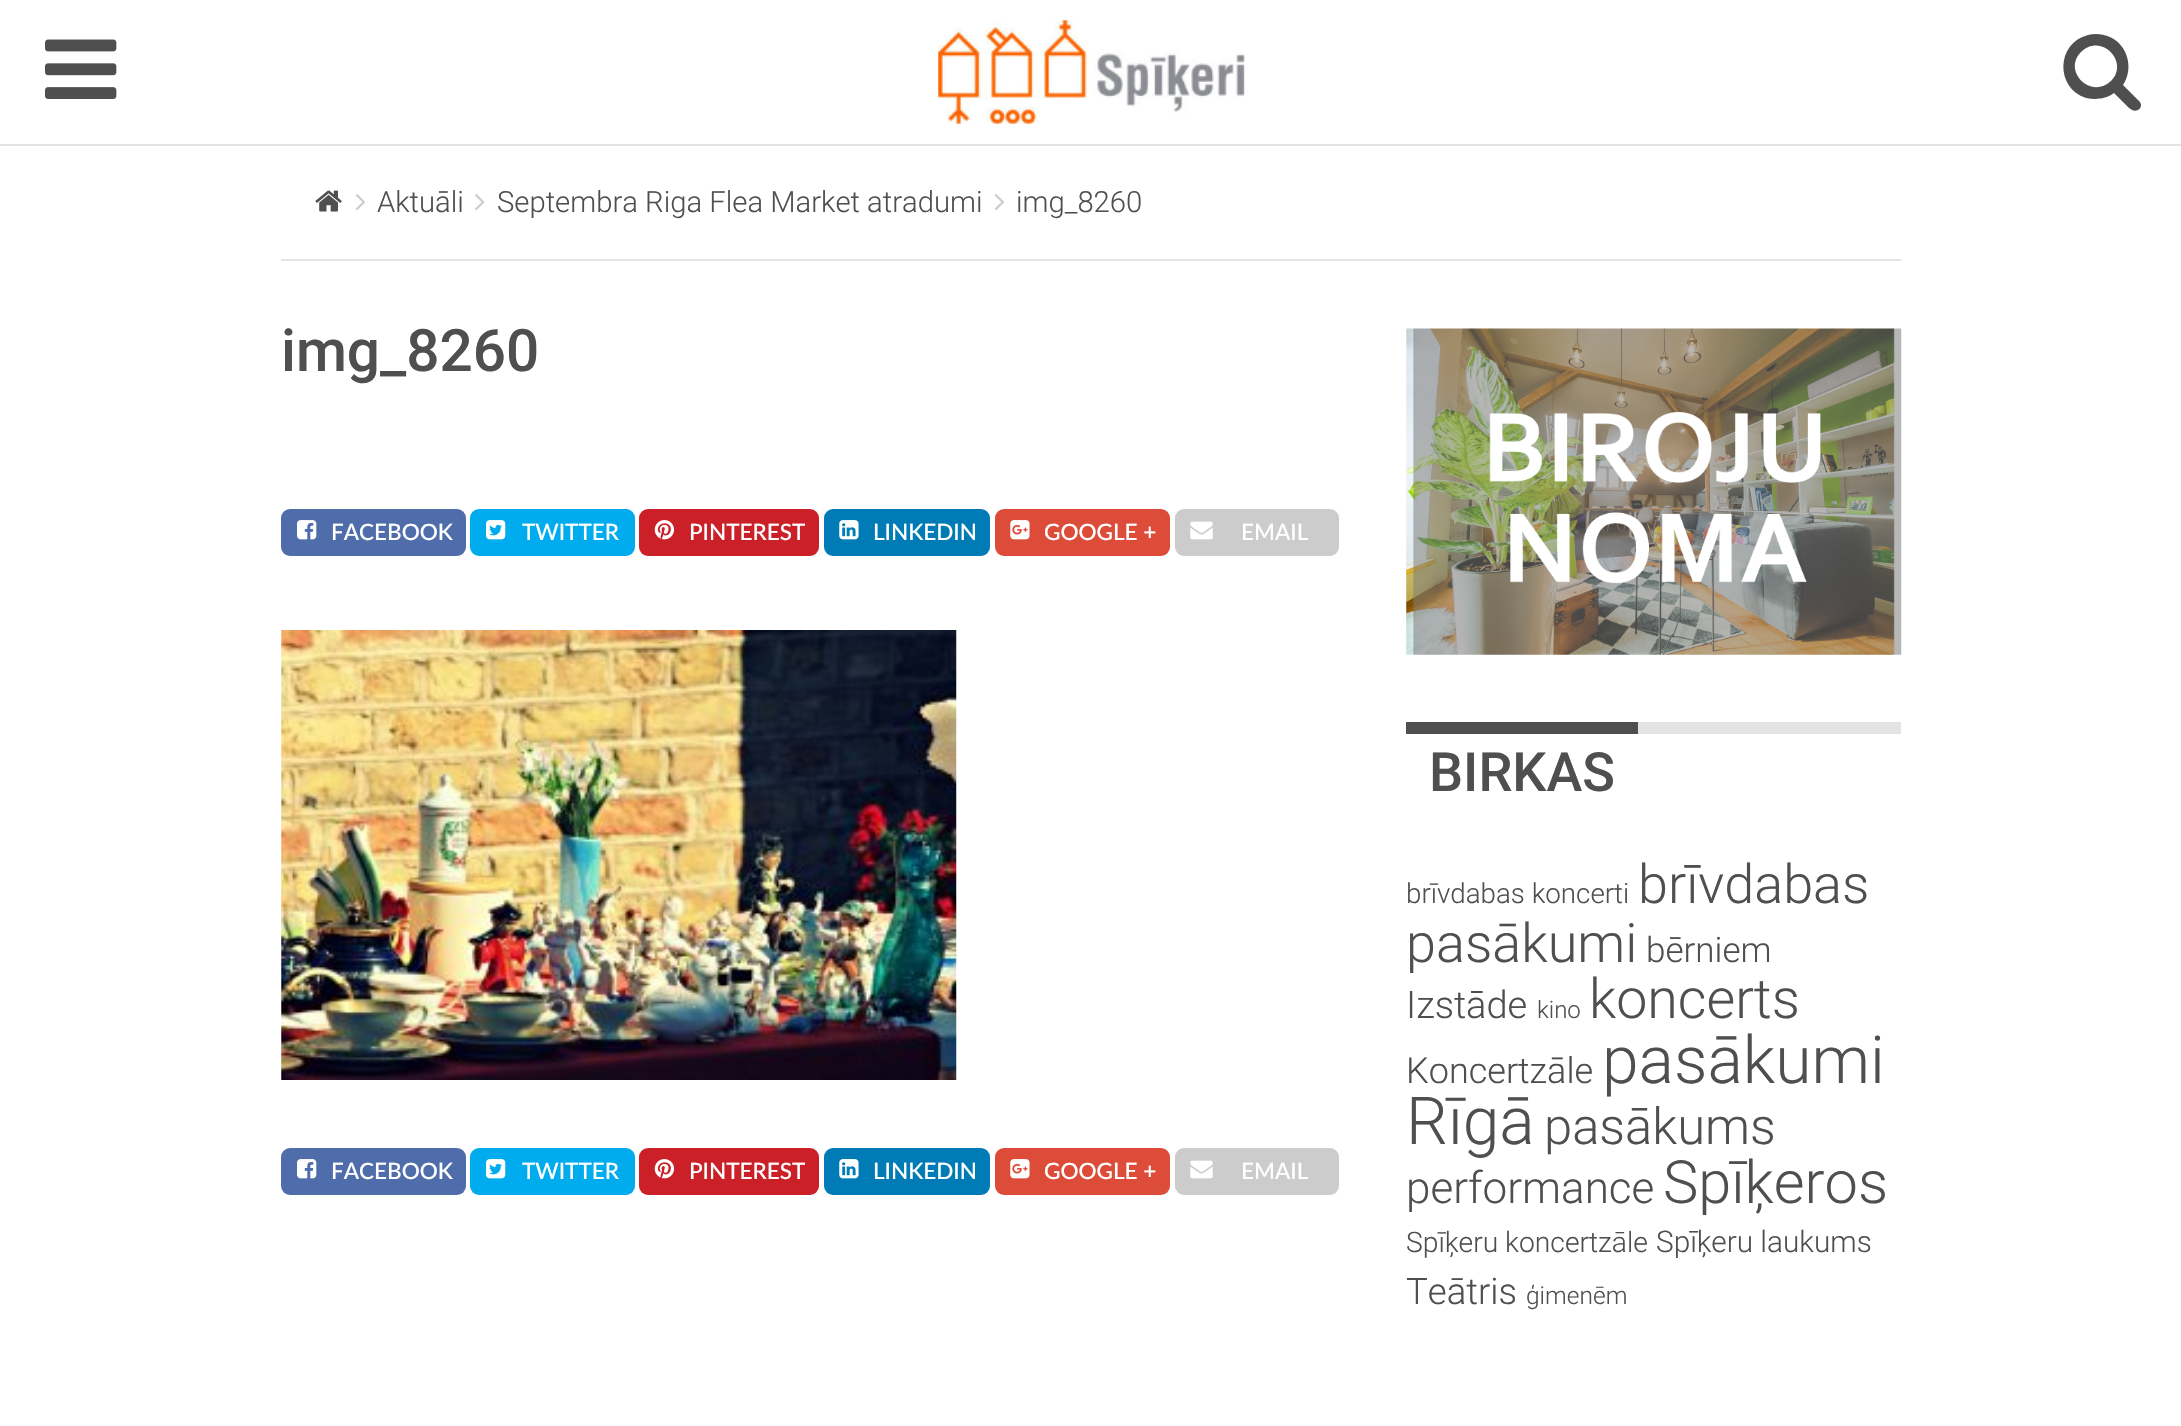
void draw(SkCanvas* canvas) {
  SkPaint paint;
  paint.setAntiAlias(true);
  auto face = [&](const char* family, int weight, float size, bool italic = false) {
    SkFontStyle style(weight, SkFontStyle::kNormal_Width,
      italic ? SkFontStyle::kItalic_Slant : SkFontStyle::kUpright_Slant);
    SkFont result(fontMgr->matchFamilyStyle(family, style), size);
    result.setSubpixel(true);
    return result;
  };
  auto paste = [&](const char* path, float x, float y, float w, float h) {
    auto image = SkImages::DeferredFromEncodedData(SkData::MakeFromFileName(path));
    canvas->drawImageRect(image, SkRect::MakeXYWH(x, y, w, h), SkSamplingOptions());
  };
  auto shape = [&](const char* data, bool evenOdd = false) {
    SkPath result = *SkParsePath::FromSVGString(data);
    if (evenOdd) result.setFillType(SkPathFillType::kEvenOdd);
    return result;
  };
  canvas->clear(0xffffffff);
  paint.setColor(0xffe3e3e3);
  canvas->drawRect(SkRect::MakeXYWH(0, 144, 2181, 2), paint);
  paste("img/1.png", 45, 39, 72, 60);
  paste("img/2.png", 938, 20, 307, 104);
  paint.setColor(0xff4f4f4f);
  canvas->drawPath(shape("M2111 81C2130 62 2101 32 2081 52C2062 71 2091 100 2111 81ZM2141 105C2141 107 2140 109 2138 110C2133 113 2128 107 2125 104L2114 93C2106 99 2096 100 2086 98C2055 88 2056 43 2088 35C2095 33 2103 34 2110 37C2128 45 2134 69 2123 85L2139 101C2140 102 2141 103 2141 105Z"), paint);
  paint.setColor(0xffe3e3e3);
  canvas->drawRect(SkRect::MakeXYWH(281, 259, 1620, 2), paint);
  paste("img/3.png", 315, 190, 27, 22);
  paste("img/4.png", 355, 194, 10, 16);
  paste("img/5.png", 475, 194, 10, 17);
  paste("img/4.png", 994, 194, 10, 16);
  paint.setColor(0xff506dab);
  canvas->drawRoundRect(SkRect::MakeXYWH(281, 509, 185, 47), 9, 9, paint);
  paste("img/6.png", 297, 520, 20, 20);
  paint.setColor(0xff00aced);
  canvas->drawRoundRect(SkRect::MakeXYWH(470, 509, 165, 47), 9, 9, paint);
  paste("img/7.png", 486, 520, 20, 20);
  paint.setColor(0xffcb2027);
  canvas->drawRoundRect(SkRect::MakeXYWH(639, 509, 180, 47), 9, 9, paint);
  paste("img/8.png", 654, 520, 20, 20);
  paint.setColor(0xff007bb6);
  canvas->drawRoundRect(SkRect::MakeXYWH(824, 509, 166, 47), 9, 9, paint);
  paste("img/9.png", 839, 520, 20, 20);
  paint.setColor(0xffdd4b39);
  canvas->drawRoundRect(SkRect::MakeXYWH(995, 509, 175, 47), 9, 9, paint);
  paste("img/10.png", 1010, 520, 20, 20);
  paint.setColor(0xffcccccc);
  canvas->drawRoundRect(SkRect::MakeXYWH(1175, 509, 164, 47), 9, 9, paint);
  paste("img/11.png", 1190, 521, 23, 19);
  paste("img/12.png", 281, 630, 676, 450);
  paint.setColor(0xff506dab);
  canvas->drawRoundRect(SkRect::MakeXYWH(281, 1148, 185, 47), 9, 9, paint);
  paste("img/6.png", 297, 1159, 20, 20);
  paint.setColor(0xff00aced);
  canvas->drawRoundRect(SkRect::MakeXYWH(470, 1148, 165, 47), 9, 9, paint);
  paste("img/7.png", 486, 1159, 20, 20);
  paint.setColor(0xffcb2027);
  canvas->drawRoundRect(SkRect::MakeXYWH(639, 1148, 180, 47), 9, 9, paint);
  paste("img/8.png", 654, 1159, 20, 20);
  paint.setColor(0xff007bb6);
  canvas->drawRoundRect(SkRect::MakeXYWH(824, 1148, 166, 47), 9, 9, paint);
  paste("img/9.png", 839, 1159, 20, 20);
  paint.setColor(0xffdd4b39);
  canvas->drawRoundRect(SkRect::MakeXYWH(995, 1148, 175, 47), 9, 9, paint);
  paste("img/10.png", 1010, 1159, 20, 20);
  paint.setColor(0xffcccccc);
  canvas->drawRoundRect(SkRect::MakeXYWH(1175, 1148, 164, 47), 9, 9, paint);
  paste("img/11.png", 1190, 1160, 23, 19);
  paste("img/13.png", 1406, 328, 496, 327);
  paint.setColor(0xffe3e3e3);
  canvas->drawRect(SkRect::MakeXYWH(1638, 722, 263, 12), paint);
  paint.setColor(0xff4f4f4f);
  canvas->drawRect(SkRect::MakeXYWH(1406, 722, 232, 12), paint);
  auto f0 = face("Roboto", 300, 29.25f);
  {
    const struct { const char* s; float x, y; } items[] = {
      {"Aktuāli", 377, 212},
      {"Septembra Riga Flea Market atradumi", 497, 212},
      {"img_8260", 1016, 212},
    };
    for (auto [s, x, y] : items) {
      canvas->drawString(s, x, y, f0, paint);
    }
  }
  auto f1 = face("Roboto", 500, 58.5f);
  canvas->drawString("img_8260", 281, 371, f1, paint);
  auto f2 = face("Lato", 500, 22.5f);
  paint.setColor(0xffffffff);
  {
    const struct { const char* s; float x, y; } items[] = {
      {"FACEBOOK", 331, 540},
      {"TWITTER", 522, 540},
      {"PINTEREST", 689, 540},
      {"LINKEDIN", 873, 540},
      {"GOOGLE +", 1044, 540},
      {"EMAIL", 1241, 540},
      {"FACEBOOK", 331, 1179},
      {"TWITTER", 522, 1179},
      {"PINTEREST", 689, 1179},
      {"LINKEDIN", 873, 1179},
      {"GOOGLE +", 1044, 1179},
      {"EMAIL", 1241, 1179},
    };
    for (auto [s, x, y] : items) {
      canvas->drawString(s, x, y, f2, paint);
    }
  }
  auto f3 = face("Roboto", 500, 54);
  paint.setColor(0xff4f4f4f);
  canvas->drawString("BIRKAS", 1429, 791, f3, paint);
  auto f4 = face("Roboto", 300, 27.75f);
  canvas->drawString("brīvdabas koncerti", 1406, 903, f4, paint);
  auto f5 = face("Roboto", 300, 54);
  canvas->drawString("brīvdabas", 1638, 903, f5, paint);
  canvas->drawString("pasākumi", 1406, 962, f5, paint);
  auto f6 = face("Roboto", 300, 35);
  canvas->drawString("bērniem", 1646, 962, f6, paint);
  auto f7 = face("Roboto", 300, 38);
  canvas->drawString("Izstāde", 1406, 1018, f7, paint);
  auto f8 = face("Roboto", 300, 24);
  canvas->drawString("kino", 1537, 1018, f8, paint);
  auto f9 = face("Roboto", 300, 55.5f);
  canvas->drawString("koncerts", 1589, 1018, f9, paint);
  auto f10 = face("Roboto", 300, 36);
  canvas->drawString("Koncertzāle", 1406, 1083, f10, paint);
  auto f11 = face("Roboto", 300, 66);
  canvas->drawString("pasākumi", 1602, 1083, f11, paint);
  canvas->drawString("Rīgā", 1406, 1144, f11, paint);
  auto f12 = face("Roboto", 300, 50.75f);
  canvas->drawString("pasākums", 1544, 1144, f12, paint);
  auto f13 = face("Roboto", 300, 44);
  canvas->drawString("performance", 1406, 1203, f13, paint);
  auto f14 = face("Roboto", 300, 59.5f);
  canvas->drawString("Spīķeros", 1663, 1203, f14, paint);
  auto f15 = face("Roboto", 300, 28.25f);
  canvas->drawString("Spīķeru koncertzāle", 1406, 1252, f15, paint);
  auto f16 = face("Roboto", 300, 29.75f);
  canvas->drawString("Spīķeru laukums", 1656, 1252, f16, paint);
  auto f17 = face("Roboto", 300, 36.5f);
  canvas->drawString("Teātris", 1406, 1304, f17, paint);
  auto f18 = face("Roboto", 300, 24.5f);
  canvas->drawString("ģimenēm", 1526, 1304, f18, paint);
}
